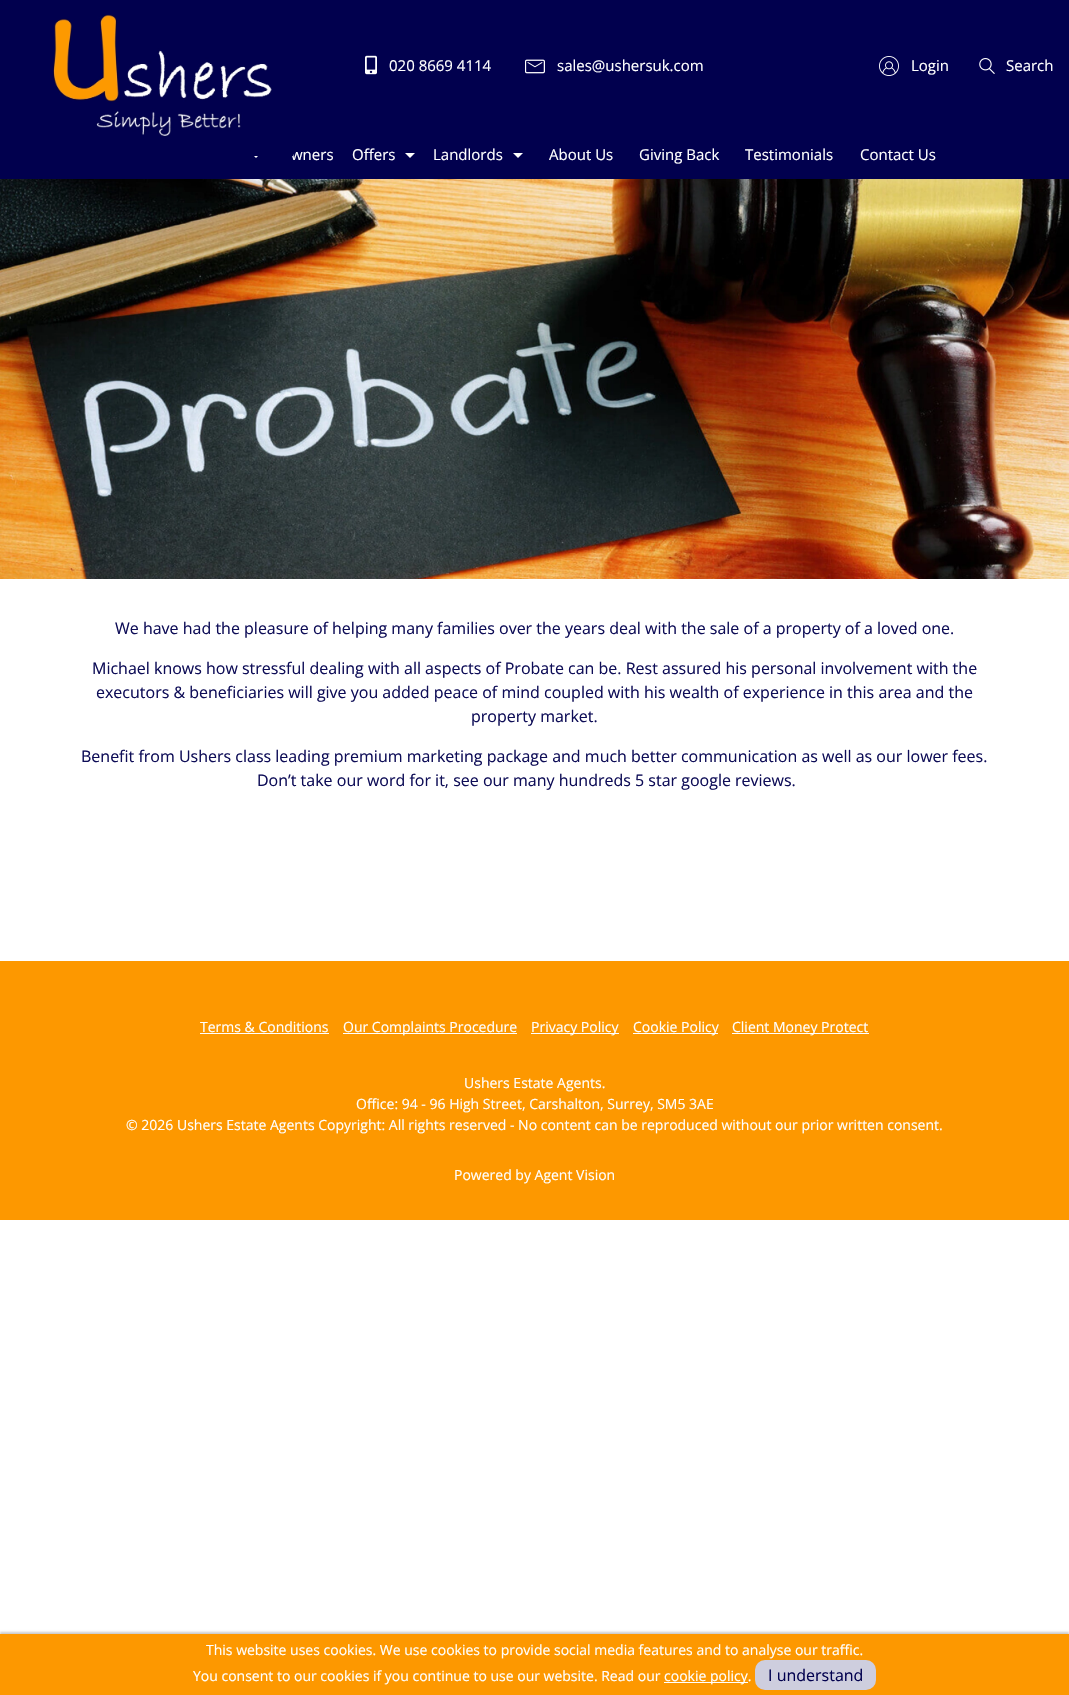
void draw(SkCanvas* canvas) {
  SkPaint paint;
  paint.setAntiAlias(true);
  auto face = [&](const char* family, int weight, float size, bool italic = false) {
    SkFontStyle style(weight, SkFontStyle::kNormal_Width,
      italic ? SkFontStyle::kItalic_Slant : SkFontStyle::kUpright_Slant);
    SkFont result(fontMgr->matchFamilyStyle(family, style), size);
    result.setSubpixel(true);
    return result;
  };
  auto paste = [&](const char* path, float x, float y, float w, float h) {
    auto image = SkImages::DeferredFromEncodedData(SkData::MakeFromFileName(path));
    canvas->drawImageRect(image, SkRect::MakeXYWH(x, y, w, h), SkSamplingOptions());
  };
  auto shape = [&](const char* data, bool evenOdd = false) {
    SkPath result = *SkParsePath::FromSVGString(data);
    if (evenOdd) result.setFillType(SkPathFillType::kEvenOdd);
    return result;
  };
  canvas->clear(0xffffffff);
  paint.setColor(0xff01004e);
  canvas->drawRect(SkRect::MakeXYWH(0, 0, 1069, 179), paint);
  paste("img/1.png", 53, 14, 219, 123);
  paste("img/2.png", 365, 55, 12, 20);
  paste("img/3.png", 525, 59, 20, 15);
  paste("img/4.png", 879, 56, 20, 20);
  paste("img/5.png", 979, 58, 16, 16);
  paint.setColor(0xffffffff);
  canvas->drawPath(shape("M251 153H261L256 158Z"), paint);
  canvas->drawPath(shape("M405 153H415L410 158Z"), paint);
  canvas->drawPath(shape("M513 153H523L518 158Z"), paint);
  paste("img/6.png", 0, 179, 1069, 400);
  {
    const struct { float x, y, w, h; SkColor color; } items[] = {
      {0, 961, 1069, 259, 0xfffd9800},
      {200, 1033, 129, 1, 0xffffffff},
      {343, 1033, 174, 1, 0xffffffff},
      {531, 1033, 88, 1, 0xffffffff},
      {633, 1033, 85, 1, 0xffffffff},
      {732, 1033, 137, 1, 0xffffffff},
    };
    for (auto [x, y, w, h, color] : items) {
      paint.setColor(color);
      canvas->drawRect(SkRect::MakeXYWH(x, y, w, h), paint);
    }
  }
  paint.setColor(0x33000000);
  paint.setMaskFilter(SkMaskFilter::MakeBlur(kNormal_SkBlurStyle, 1));
  canvas->drawRect(SkRect::MakeXYWH(0, 1632, 1069, 61), paint);
  paint.setMaskFilter(nullptr);
  paint.setColor(0xfffd9800);
  canvas->drawRect(SkRect::MakeXYWH(0, 1634, 1069, 61), paint);
  paint.setColor(0xffffffff);
  canvas->drawRect(SkRect::MakeXYWH(664, 1682, 84, 1), paint);
  paint.setColor(0xffcecede);
  canvas->drawRoundRect(SkRect::MakeXYWH(755, 1660, 121, 30), 10, 10, paint);
  auto f0 = face("Open Sans", 400, 15);
  paint.setColor(0xffffffff);
  {
    const struct { const char* s; float x, y; } items[] = {
      {"020 8669 4114", 389, 71},
      {"sales@ushersuk.com", 557, 71},
      {"Login", 911, 71},
      {"Search", 1006, 71},
      {"wners", 291, 160},
    };
    for (auto [s, x, y] : items) {
      canvas->drawString(s, x, y, f0, paint);
    }
  }
  paint.setColor(0xff01004e);
  canvas->drawRect(SkRect::MakeXYWH(251, 151, 42, 5), paint);
  paint.setColor(0xffffffff);
  {
    const struct { const char* s; float x, y; } items[] = {
      {"Offers", 352, 160},
      {"Landlords", 433, 160},
      {"About Us", 549, 160},
      {"Giving Back", 639, 160},
      {"Testimonials", 745, 160},
      {"Contact Us", 860, 160},
    };
    for (auto [s, x, y] : items) {
      canvas->drawString(s, x, y, f0, paint);
    }
  }
  auto f1 = face("Open Sans", 400, 16);
  paint.setColor(0xff0e0d57);
  {
    const struct { const char* s; float x, y; } items[] = {
      {"We have had the pleasure of helping many families over the years deal with the sale of a property of a loved one.", 115, 634},
      {"Michael knows how stressful dealing with all aspects of Probate can be. Rest assured his personal involvement with the", 92, 674},
      {"executors & beneficiaries will give you added peace of mind coupled with his wealth of experience in this area and the", 96, 698},
      {"property market.", 471, 722},
      {"Benefit from Ushers class leading premium marketing package and much better communication as well as our lower fees.", 81, 762},
      {"Don’t take our word for it, see our many hundreds 5 star google reviews.", 257, 786},
    };
    for (auto [s, x, y] : items) {
      canvas->drawString(s, x, y, f1, paint);
    }
  }
  auto f2 = face("Open Sans", 400, 14);
  paint.setColor(0xffffffff);
  {
    const struct { const char* s; float x, y; } items[] = {
      {"Terms & Conditions", 200, 1032},
      {"Our Complaints Procedure", 343, 1032},
      {"Privacy Policy", 531, 1032},
      {"Cookie Policy", 633, 1032},
      {"Client Money Protect", 732, 1032},
      {"Ushers Estate Agents.", 464, 1088},
      {"Office: 94 - 96 High Street, Carshalton, Surrey, SM5 3AE", 356, 1109},
      {"© 2026 Ushers Estate Agents Copyright: All rights reserved - No content can be reproduced without our prior written consent.", 126, 1130},
      {"Powered by Agent Vision", 454, 1180},
      {"This website uses cookies. We use cookies to provide social media features and to analyse our traffic.", 206, 1655},
      {"You consent to our cookies if you continue to use our website. Read our", 193, 1681},
      {"cookie policy.", 664, 1681},
    };
    for (auto [s, x, y] : items) {
      canvas->drawString(s, x, y, f2, paint);
    }
  }
  paint.setColor(0xff01004e);
  canvas->drawString("I understand", 768, 1681, f1, paint);
}
